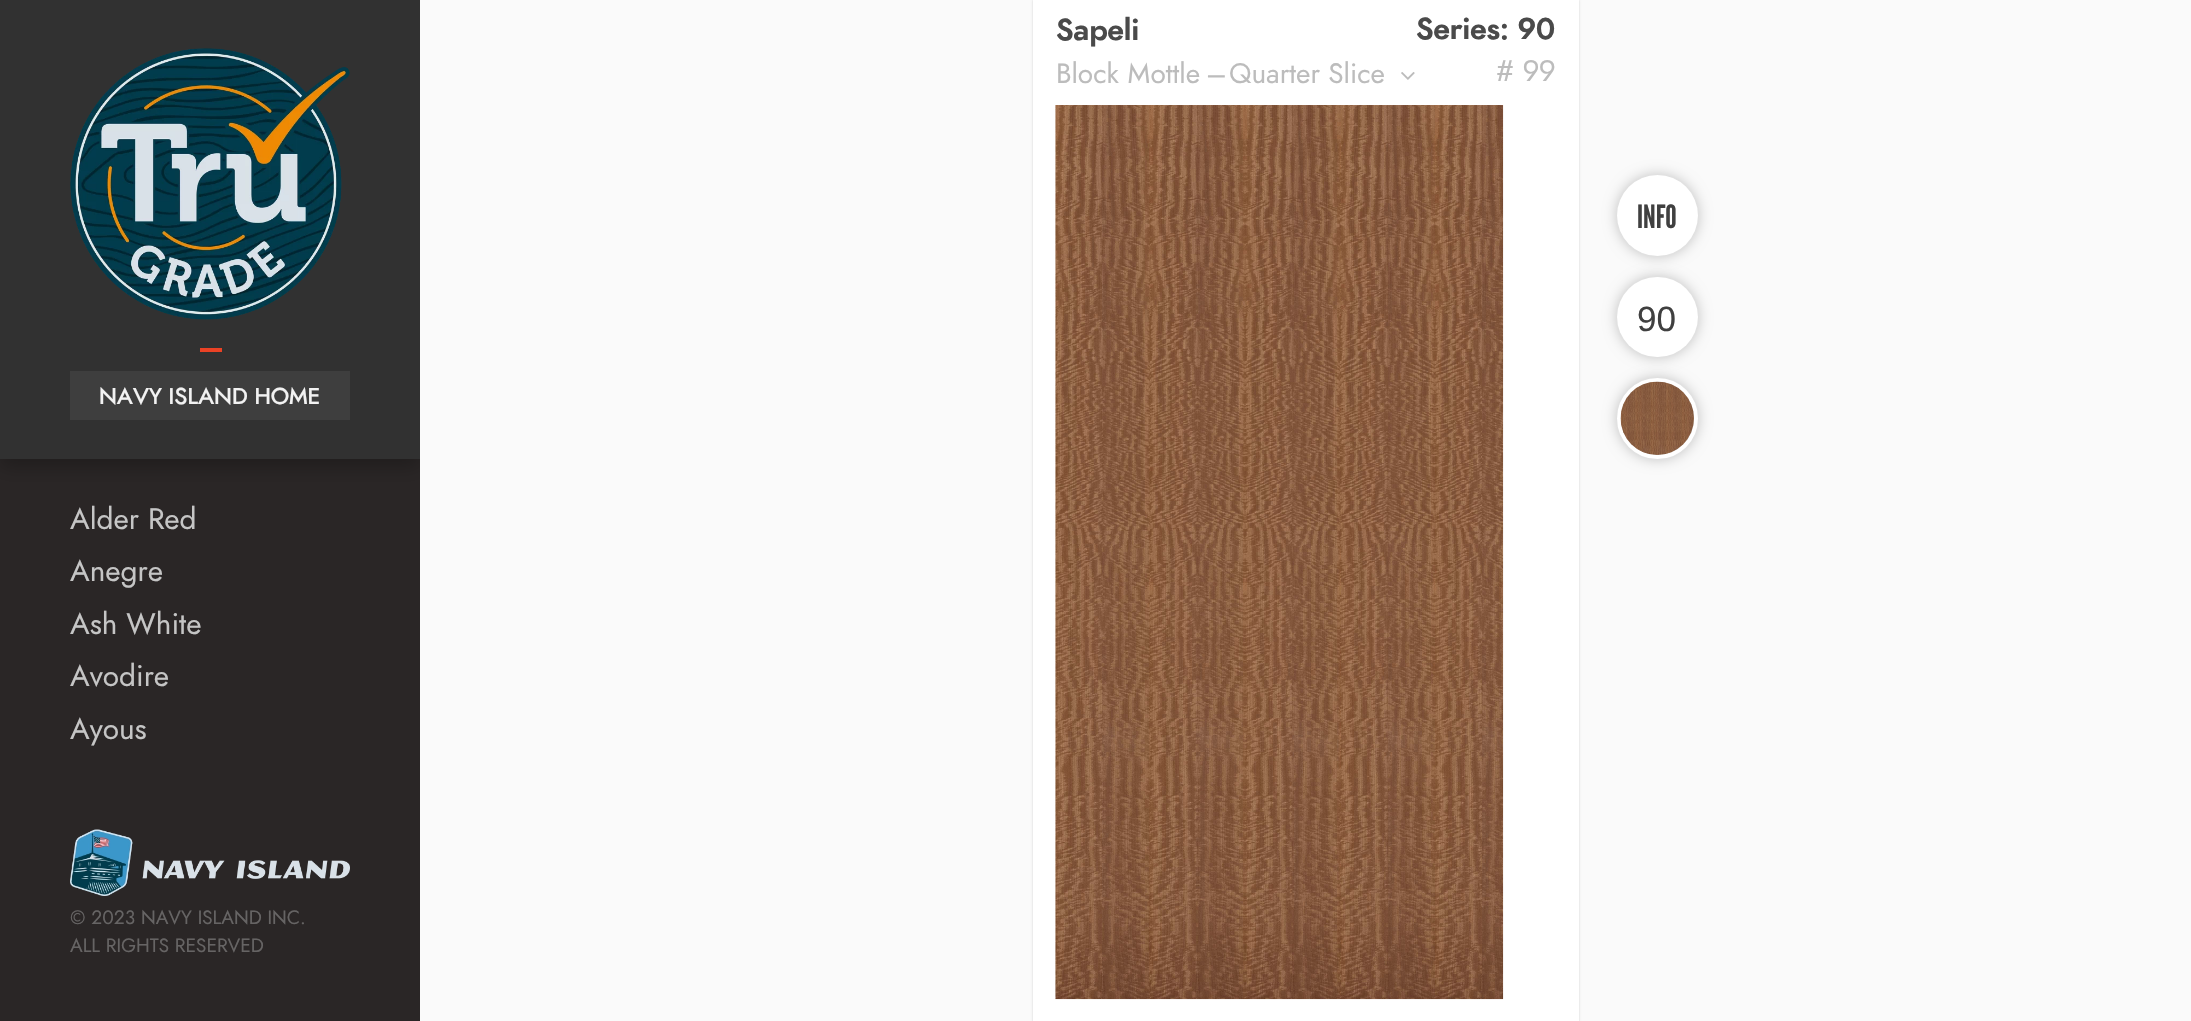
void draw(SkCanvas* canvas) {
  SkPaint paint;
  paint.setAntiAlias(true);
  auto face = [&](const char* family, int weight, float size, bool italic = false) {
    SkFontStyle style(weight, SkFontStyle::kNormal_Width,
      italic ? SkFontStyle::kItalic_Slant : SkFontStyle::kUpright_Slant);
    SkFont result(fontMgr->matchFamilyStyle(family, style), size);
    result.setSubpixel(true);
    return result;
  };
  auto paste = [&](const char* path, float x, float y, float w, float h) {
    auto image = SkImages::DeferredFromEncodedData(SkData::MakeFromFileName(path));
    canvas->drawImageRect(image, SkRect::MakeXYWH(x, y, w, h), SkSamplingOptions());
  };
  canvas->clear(0xff2a2626);
  paint.setColor(0x3d000000);
  paint.setMaskFilter(SkMaskFilter::MakeBlur(kNormal_SkBlurStyle, 9));
  canvas->drawRect(SkRect::MakeXYWH(0, 9, 420, 458), paint);
  paint.setMaskFilter(nullptr);
  paint.setColor(0xfffafafa);
  canvas->drawRect(SkRect::MakeXYWH(420, 0, 1771, 1021), paint);
  paint.setColor(0x2b000000);
  paint.setMaskFilter(SkMaskFilter::MakeBlur(kNormal_SkBlurStyle, 1));
  canvas->drawRect(SkRect::MakeXYWH(1033, 0, 546, 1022), paint);
  paint.setMaskFilter(nullptr);
  paint.setColor(0xffffffff);
  canvas->drawRect(SkRect::MakeXYWH(1033, 0, 546, 1021), paint);
  paste("img/1.png", 1401, 72, 14, 8);
  paste("img/2.png", 1055, 105, 449, 895);
  paint.setColor(0x3d000000);
  paint.setMaskFilter(SkMaskFilter::MakeBlur(kNormal_SkBlurStyle, 7));
  canvas->drawRoundRect(SkRect::MakeXYWH(1617, 175, 81, 81), 40.5f, 40.5f, paint);
  paint.setMaskFilter(nullptr);
  paint.setColor(0xffffffff);
  canvas->drawCircle(1657.5f, 215.5f, 40.5f, paint);
  paint.setColor(0x3d000000);
  paint.setMaskFilter(SkMaskFilter::MakeBlur(kNormal_SkBlurStyle, 7));
  canvas->drawRoundRect(SkRect::MakeXYWH(1617, 277, 81, 80), 40, 40, paint);
  paint.setMaskFilter(nullptr);
  paint.setColor(0xffffffff);
  canvas->drawRoundRect(SkRect::MakeXYWH(1617, 277, 81, 80), 40, 40, paint);
  paint.setColor(0x3d000000);
  paint.setMaskFilter(SkMaskFilter::MakeBlur(kNormal_SkBlurStyle, 7));
  canvas->drawRoundRect(SkRect::MakeXYWH(1617, 378, 81, 81), 40.5f, 40.5f, paint);
  paint.setMaskFilter(nullptr);
  paint.setStroke(true);
  paint.setStrokeWidth(4);
  paint.setColor(0xffffffff);
  canvas->drawCircle(1657.5f, 418.5f, 38.5f, paint);
  paste("img/3.png", 1620, 381, 74, 74);
  paint.setStroke(false);
  paint.setColor(0xff313131);
  canvas->drawRect(SkRect::MakeXYWH(0, 0, 420, 459), paint);
  paste("img/4.png", 70, 48, 280, 272);
  paint.setColor(0xffea4225);
  canvas->drawRect(SkRect::MakeXYWH(200, 348, 22, 4), paint);
  paint.setColor(0xff3e3e3e);
  canvas->drawRect(SkRect::MakeXYWH(70, 371, 280, 49), paint);
  paste("img/5.png", 70, 829, 280, 67);
  auto f0 = face("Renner", 700, 29.75f);
  paint.setColor(0xff4a4a4a);
  canvas->drawString("Sapeli", 1056, 40, f0, paint);
  auto f1 = face("Renner", 400, 28);
  paint.setColor(0xffbcbcbc);
  {
    const struct { const char* s; float x, y; } items[] = {
      {"Block Mottle", 1056, 83},
      {"–", 1206, 83},
      {"Quarter Slice", 1229, 83},
    };
    for (auto [s, x, y] : items) {
      canvas->drawString(s, x, y, f1, paint);
    }
  }
  paint.setColor(0xff4a4a4a);
  canvas->drawString("Series: 90", 1416, 39, f0, paint);
  auto f2 = face("Renner", 400, 29.75f);
  paint.setColor(0xffbcbcbc);
  canvas->drawString("# 99", 1496, 81, f2, paint);
  auto f3 = face("League Gothic", 400, 32);
  paint.setColor(0xff404040);
  canvas->drawString("INFO", 1637, 228, f3, paint);
  auto f4 = face("Liberation Sans", 400, 35);
  canvas->drawString("90", 1637, 331, f4, paint);
  auto f5 = face("Renner", 500, 22.75f);
  paint.setColor(0xfff2f2f2);
  canvas->drawString("NAVY ISLAND HOME", 99, 404, f5, paint);
  paint.setColor(0xffc5c5c5);
  {
    const struct { const char* s; float x, y; } items[] = {
      {"Alder Red", 70, 529},
      {"Anegre", 70, 581},
      {"Ash White", 70, 634},
      {"Avodire", 70, 686},
      {"Ayous", 70, 739},
    };
    for (auto [s, x, y] : items) {
      canvas->drawString(s, x, y, f2, paint);
    }
  }
  auto f6 = face("Renner", 400, 19.25f);
  paint.setColor(0xff666464);
  canvas->drawString("© 2023 NAVY ISLAND INC.", 70, 924, f6, paint);
  canvas->drawString("ALL RIGHTS RESERVED", 70, 952, f6, paint);
}
